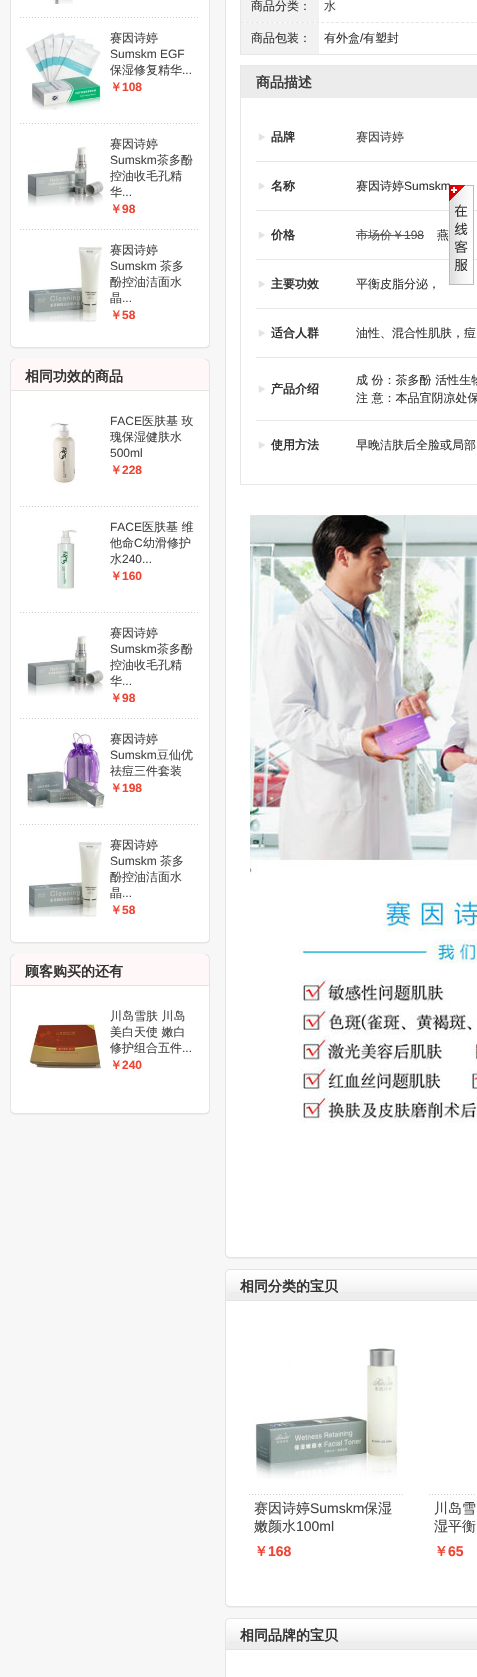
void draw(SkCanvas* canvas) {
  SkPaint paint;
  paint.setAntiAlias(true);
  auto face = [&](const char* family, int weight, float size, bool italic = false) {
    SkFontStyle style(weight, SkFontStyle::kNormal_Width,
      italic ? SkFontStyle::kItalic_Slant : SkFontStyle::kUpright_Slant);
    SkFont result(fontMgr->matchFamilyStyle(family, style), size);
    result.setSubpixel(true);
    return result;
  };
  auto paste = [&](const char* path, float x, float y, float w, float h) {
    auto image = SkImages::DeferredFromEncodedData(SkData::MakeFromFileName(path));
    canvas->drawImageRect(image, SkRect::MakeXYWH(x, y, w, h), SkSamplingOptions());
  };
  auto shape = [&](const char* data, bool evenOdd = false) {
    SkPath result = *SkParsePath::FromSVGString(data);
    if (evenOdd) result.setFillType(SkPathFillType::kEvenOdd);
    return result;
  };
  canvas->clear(0xfff7f7f7);
  paste("img/1.png", 10, 344, 200, 5);
  {
    const struct { float x, y, w, h; SkColor color; } items[] = {
      {11, 0, 198, 344, 0xffffffff},
      {209, 0, 1, 344, 0xffe4e4e4},
      {10, 0, 1, 344, 0xffe4e4e4},
    };
    for (auto [x, y, w, h, color] : items) {
      paint.setColor(color);
      canvas->drawRect(SkRect::MakeXYWH(x, y, w, h), paint);
    }
  }
  paste("img/2.png", 53, 0, 20, 4);
  paste("img/3.png", 20, 17, 178, 1);
  paste("img/4.png", 25, 32, 79, 78);
  paste("img/3.png", 20, 123, 178, 1);
  paste("img/5.png", 25, 147, 79, 60);
  paste("img/3.png", 20, 229, 178, 1);
  paste("img/6.png", 27, 246, 75, 76);
  paste("img/1.png", 10, 939, 200, 5);
  paint.setColor(0xfffff7f8);
  canvas->drawRect(SkRect::MakeXYWH(15, 359, 190, 31), paint);
  paste("img/7.png", 10, 359, 5, 31);
  paste("img/8.png", 205, 359, 5, 31);
  {
    const struct { float x, y, w, h; SkColor color; } items[] = {
      {11, 391, 198, 548, 0xffffffff},
      {10, 390, 200, 1, 0xffe4e4e4},
      {209, 390, 1, 549, 0xffe4e4e4},
      {10, 390, 1, 549, 0xffe4e4e4},
    };
    for (auto [x, y, w, h, color] : items) {
      paint.setColor(color);
      canvas->drawRect(SkRect::MakeXYWH(x, y, w, h), paint);
    }
  }
  paste("img/9.png", 50, 422, 30, 63);
  paste("img/3.png", 20, 506, 178, 1);
  paste("img/10.png", 50, 528, 30, 62);
  paste("img/3.png", 20, 612, 178, 1);
  paste("img/11.png", 25, 636, 79, 60);
  paste("img/3.png", 20, 718, 178, 1);
  paste("img/12.png", 25, 731, 80, 78);
  paste("img/3.png", 20, 824, 178, 1);
  paste("img/13.png", 27, 841, 75, 76);
  paste("img/1.png", 10, 1110, 200, 5);
  paint.setColor(0xfffff7f8);
  canvas->drawRect(SkRect::MakeXYWH(15, 954, 190, 31), paint);
  paste("img/7.png", 10, 954, 5, 31);
  paste("img/8.png", 205, 954, 5, 31);
  {
    const struct { float x, y, w, h; SkColor color; } items[] = {
      {11, 986, 198, 124, 0xffffffff},
      {10, 985, 200, 1, 0xffe4e4e4},
      {209, 985, 1, 125, 0xffe4e4e4},
      {10, 985, 1, 125, 0xffe4e4e4},
    };
    for (auto [x, y, w, h, color] : items) {
      paint.setColor(color);
      canvas->drawRect(SkRect::MakeXYWH(x, y, w, h), paint);
    }
  }
  paste("img/14.png", 26, 1023, 76, 47);
  paste("img/15.png", 225, 1254, 252, 5);
  paint.setColor(0xffffffff);
  canvas->drawRect(SkRect::MakeXYWH(226, 0, 251, 1254), paint);
  paint.setColor(0xffe4e4e4);
  canvas->drawRect(SkRect::MakeXYWH(225, 0, 1, 1254), paint);
  paint.setStroke(true);
  paint.setStrokeWidth(1);
  paint.setColor(0xffe7e7e7);
  canvas->drawRect(SkRect::MakeXYWH(240.5f, -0.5f, 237, 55), paint);
  paint.setPathEffect(SkDashPathEffect::Make({{3, 2}}, 0));
  canvas->drawPath(shape("M241 22.5H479"), paint);
  paint.setPathEffect(nullptr);
  paint.setStroke(false);
  paint.setColor(0xfff2f2f2);
  canvas->drawRect(SkRect::MakeXYWH(241, 0, 78, 22), paint);
  canvas->drawRect(SkRect::MakeXYWH(241, 23, 78, 31), paint);
  paint.setStroke(true);
  paint.setColor(0xffe7e7e7);
  canvas->drawRect(SkRect::MakeXYWH(240.5f, 65.5f, 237, 419), paint);
  paint.setStroke(false);
  paint.setColor(0xffececec);
  canvas->drawRect(SkRect::MakeXYWH(241, 66, 236, 32), paint);
  paint.setColor(0xffe7e7e7);
  canvas->drawRect(SkRect::MakeXYWH(256, 161, 221, 1), paint);
  paste("img/16.png", 258, 133, 7, 8);
  canvas->drawRect(SkRect::MakeXYWH(256, 210, 221, 1), paint);
  paste("img/16.png", 258, 182, 7, 8);
  canvas->drawRect(SkRect::MakeXYWH(256, 259, 221, 1), paint);
  paste("img/16.png", 258, 231, 7, 8);
  {
    const struct { float x, y, w, h; SkColor color; } items[] = {
      {356, 235, 48, 1, 0xff555555},
      {404, 235, 20, 1, 0xff555555},
      {256, 308, 221, 1, 0xffe7e7e7},
    };
    for (auto [x, y, w, h, color] : items) {
      paint.setColor(color);
      canvas->drawRect(SkRect::MakeXYWH(x, y, w, h), paint);
    }
  }
  paste("img/16.png", 258, 280, 7, 8);
  canvas->drawRect(SkRect::MakeXYWH(256, 357, 221, 1), paint);
  paste("img/16.png", 258, 329, 7, 8);
  canvas->drawRect(SkRect::MakeXYWH(256, 420, 221, 1), paint);
  paste("img/16.png", 258, 385, 7, 8);
  paste("img/16.png", 258, 441, 7, 8);
  paste("img/17.png", 250, 515, 227, 608);
  paste("img/15.png", 225, 1603, 252, 5);
  paint.setColor(0xffededed);
  canvas->drawRect(SkRect::MakeXYWH(229, 1292, 248, 8), paint);
  paste("img/18.png", 229, 1269, 248, 23);
  paste("img/19.png", 225, 1269, 4, 31);
  {
    const struct { float x, y, w, h; SkColor color; } items[] = {
      {226, 1301, 251, 302, 0xffffffff},
      {225, 1300, 252, 1, 0xffe4e4e4},
      {225, 1300, 1, 303, 0xffe4e4e4},
    };
    for (auto [x, y, w, h, color] : items) {
      paint.setColor(color);
      canvas->drawRect(SkRect::MakeXYWH(x, y, w, h), paint);
    }
  }
  paste("img/20.png", 252, 1348, 148, 131);
  paste("img/21.png", 249, 1494, 154, 1);
  paste("img/22.png", 429, 1494, 46, 1);
  paint.setColor(0xffededed);
  canvas->drawRect(SkRect::MakeXYWH(229, 1641, 248, 8), paint);
  paste("img/18.png", 229, 1618, 248, 23);
  paste("img/19.png", 225, 1618, 4, 31);
  {
    const struct { float x, y, w, h; SkColor color; } items[] = {
      {226, 1650, 251, 27, 0xffffffff},
      {225, 1649, 252, 1, 0xffe4e4e4},
      {225, 1649, 1, 28, 0xffe4e4e4},
    };
    for (auto [x, y, w, h, color] : items) {
      paint.setColor(color);
      canvas->drawRect(SkRect::MakeXYWH(x, y, w, h), paint);
    }
  }
  auto f0 = face("WenQuanYi Zen Hei", 500, 12);
  paint.setColor(0xff444444);
  canvas->drawString("赛因诗婷", 110, 42, f0, paint);
  auto f1 = face("Liberation Sans", 400, 12);
  canvas->drawString("Sumskm EGF", 110, 58, f1, paint);
  canvas->drawString("保湿修复精华", 110, 74, f0, paint);
  canvas->drawString("...", 182, 74, f1, paint);
  auto f2 = face("WenQuanYi Zen Hei", 700, 12);
  paint.setColor(0xfff04331);
  canvas->drawString("￥", 110, 91, f2, paint);
  auto f3 = face("Liberation Sans", 700, 12);
  canvas->drawString("108", 122, 91, f3, paint);
  paint.setColor(0xff444444);
  canvas->drawString("赛因诗婷", 110, 148, f0, paint);
  canvas->drawString("Sumskm", 110, 164, f1, paint);
  {
    const struct { const char* s; float x, y; } items[] = {
      {"茶多酚", 157, 164},
      {"控油收毛孔精", 110, 180},
      {"华", 110, 196},
    };
    for (auto [s, x, y] : items) {
      canvas->drawString(s, x, y, f0, paint);
    }
  }
  canvas->drawString("...", 122, 196, f1, paint);
  paint.setColor(0xfff04331);
  canvas->drawString("￥", 110, 213, f2, paint);
  canvas->drawString("98", 122, 213, f3, paint);
  paint.setColor(0xff444444);
  canvas->drawString("赛因诗婷", 110, 254, f0, paint);
  canvas->drawString("Sumskm", 110, 270, f1, paint);
  {
    const struct { const char* s; float x, y; } items[] = {
      {"茶多", 160, 270},
      {"酚控油洁面水", 110, 286},
      {"晶", 110, 302},
    };
    for (auto [s, x, y] : items) {
      canvas->drawString(s, x, y, f0, paint);
    }
  }
  canvas->drawString("...", 122, 302, f1, paint);
  paint.setColor(0xfff04331);
  canvas->drawString("￥", 110, 319, f2, paint);
  canvas->drawString("58", 122, 319, f3, paint);
  auto f4 = face("WenQuanYi Zen Hei", 700, 14);
  paint.setColor(0xff333333);
  canvas->drawString("相同功效的商品", 25, 381, f4, paint);
  paint.setColor(0xff444444);
  canvas->drawString("FACE", 110, 425, f1, paint);
  canvas->drawString("医肤基 玫", 142, 425, f0, paint);
  canvas->drawString("瑰保湿健肤水", 110, 441, f0, paint);
  canvas->drawString("500ml", 110, 457, f1, paint);
  paint.setColor(0xfff04331);
  canvas->drawString("￥", 110, 474, f2, paint);
  canvas->drawString("228", 122, 474, f3, paint);
  paint.setColor(0xff444444);
  canvas->drawString("FACE", 110, 531, f1, paint);
  canvas->drawString("医肤基 维", 142, 531, f0, paint);
  canvas->drawString("他命", 110, 547, f0, paint);
  canvas->drawString("C", 134, 547, f1, paint);
  canvas->drawString("幼滑修护", 143, 547, f0, paint);
  canvas->drawString("水", 110, 563, f0, paint);
  canvas->drawString("240...", 122, 563, f1, paint);
  paint.setColor(0xfff04331);
  canvas->drawString("￥", 110, 580, f2, paint);
  canvas->drawString("160", 122, 580, f3, paint);
  paint.setColor(0xff444444);
  canvas->drawString("赛因诗婷", 110, 637, f0, paint);
  canvas->drawString("Sumskm", 110, 653, f1, paint);
  {
    const struct { const char* s; float x, y; } items[] = {
      {"茶多酚", 157, 653},
      {"控油收毛孔精", 110, 669},
      {"华", 110, 685},
    };
    for (auto [s, x, y] : items) {
      canvas->drawString(s, x, y, f0, paint);
    }
  }
  canvas->drawString("...", 122, 685, f1, paint);
  paint.setColor(0xfff04331);
  canvas->drawString("￥", 110, 702, f2, paint);
  canvas->drawString("98", 122, 702, f3, paint);
  paint.setColor(0xff444444);
  canvas->drawString("赛因诗婷", 110, 743, f0, paint);
  canvas->drawString("Sumskm", 110, 759, f1, paint);
  canvas->drawString("豆仙优", 157, 759, f0, paint);
  canvas->drawString("祛痘三件套装", 110, 775, f0, paint);
  paint.setColor(0xfff04331);
  canvas->drawString("￥", 110, 792, f2, paint);
  canvas->drawString("198", 122, 792, f3, paint);
  paint.setColor(0xff444444);
  canvas->drawString("赛因诗婷", 110, 849, f0, paint);
  canvas->drawString("Sumskm", 110, 865, f1, paint);
  {
    const struct { const char* s; float x, y; } items[] = {
      {"茶多", 160, 865},
      {"酚控油洁面水", 110, 881},
      {"晶", 110, 897},
    };
    for (auto [s, x, y] : items) {
      canvas->drawString(s, x, y, f0, paint);
    }
  }
  canvas->drawString("...", 122, 897, f1, paint);
  paint.setColor(0xfff04331);
  canvas->drawString("￥", 110, 914, f2, paint);
  canvas->drawString("58", 122, 914, f3, paint);
  paint.setColor(0xff333333);
  canvas->drawString("顾客购买的还有", 25, 976, f4, paint);
  paint.setColor(0xff444444);
  {
    const struct { const char* s; float x, y; } items[] = {
      {"川岛雪肤 川岛", 110, 1020},
      {"美白天使 嫩白", 110, 1036},
      {"修护组合五件", 110, 1052},
    };
    for (auto [s, x, y] : items) {
      canvas->drawString(s, x, y, f0, paint);
    }
  }
  canvas->drawString("...", 182, 1052, f1, paint);
  paint.setColor(0xfff04331);
  canvas->drawString("￥", 110, 1069, f2, paint);
  canvas->drawString("240", 122, 1069, f3, paint);
  paint.setColor(0xff333333);
  canvas->drawString("商品分类：", 251, 10, f0, paint);
  paint.setColor(0xff444444);
  canvas->drawString("水", 324, 10, f0, paint);
  paint.setColor(0xff333333);
  canvas->drawString("商品包装：", 251, 42, f0, paint);
  canvas->drawString("有外盒", 324, 42, f0, paint);
  canvas->drawString("/", 360, 42, f1, paint);
  canvas->drawString("有塑封", 363, 42, f0, paint);
  paint.setColor(0xff3c3c3c);
  canvas->drawString("商品描述", 256, 87, f4, paint);
  paint.setColor(0xff333333);
  canvas->drawString("品牌", 271, 141, f2, paint);
  paint.setColor(0xff444444);
  canvas->drawString("赛因诗婷", 356, 141, f0, paint);
  paint.setColor(0xff333333);
  canvas->drawString("名称", 271, 190, f2, paint);
  canvas->drawString("赛因诗婷", 356, 190, f0, paint);
  canvas->drawString("Sumskm", 404, 190, f1, paint);
  canvas->drawString("价格", 271, 239, f2, paint);
  paint.setColor(0xff555555);
  canvas->drawString("市场价￥", 356, 239, f0, paint);
  canvas->drawString("198", 404, 239, f1, paint);
  paint.setColor(0xff333333);
  canvas->drawString("燕", 437, 239, f0, paint);
  canvas->drawString("主要功效", 271, 288, f2, paint);
  canvas->drawString("平衡皮脂分泌，", 356, 288, f0, paint);
  canvas->drawString("适合人群", 271, 337, f2, paint);
  canvas->drawString("油性、混合性肌肤，痘", 356, 337, f0, paint);
  canvas->drawString("产品介绍", 271, 393, f2, paint);
  canvas->drawString("成 份：茶多酚 活性生物", 356, 384, f0, paint);
  canvas->drawString("注 意：本品宜阴凉处保", 356, 402, f0, paint);
  canvas->drawString("使用方法", 271, 449, f2, paint);
  canvas->drawString("早晚洁肤后全脸或局部", 356, 449, f0, paint);
  canvas->drawString("相同分类的宝贝", 240, 1291, f4, paint);
  auto f5 = face("WenQuanYi Zen Hei", 500, 14);
  paint.setColor(0xff444444);
  canvas->drawString("赛因诗婷", 254, 1513, f5, paint);
  auto f6 = face("Liberation Sans", 400, 14);
  canvas->drawString("Sumskm", 310, 1513, f6, paint);
  canvas->drawString("保湿", 364, 1513, f5, paint);
  canvas->drawString("嫩颜水", 254, 1531, f5, paint);
  canvas->drawString("100ml", 296, 1531, f6, paint);
  paint.setColor(0xfff04331);
  canvas->drawString("￥", 254, 1556, f4, paint);
  auto f7 = face("Liberation Sans", 700, 14);
  canvas->drawString("168", 268, 1556, f7, paint);
  paint.setColor(0xff444444);
  canvas->drawString("川岛雪", 434, 1513, f5, paint);
  canvas->drawString("湿平衡", 434, 1531, f5, paint);
  paint.setColor(0xfff04331);
  canvas->drawString("￥", 434, 1556, f4, paint);
  canvas->drawString("65", 448, 1556, f7, paint);
  paint.setColor(0xff333333);
  canvas->drawString("相同品牌的宝贝", 240, 1640, f4, paint);
  paste("img/23.png", 449, 185, 25, 100);
}
